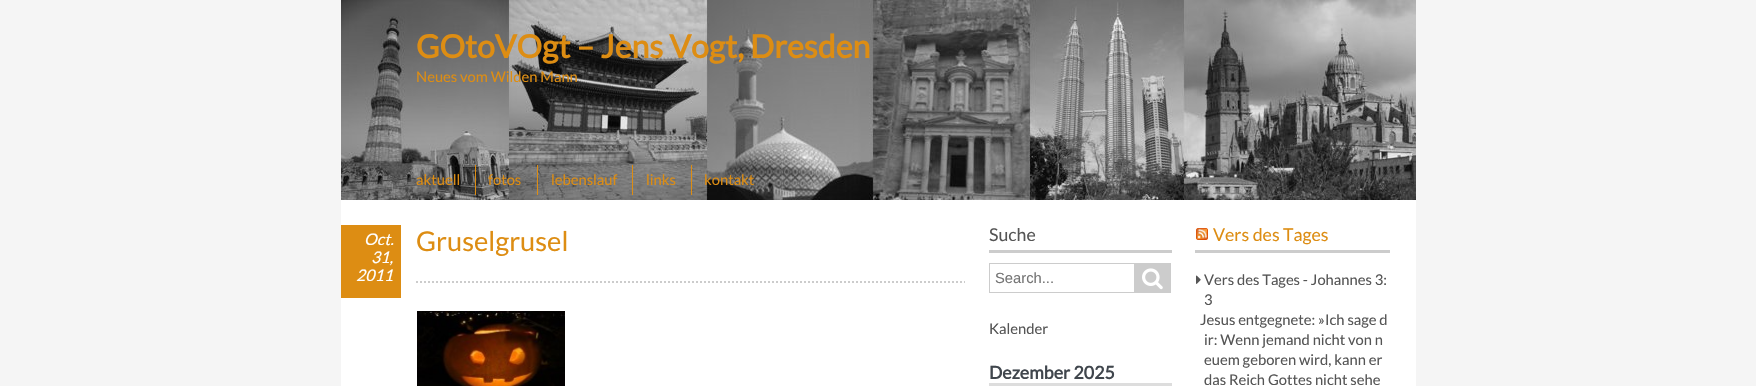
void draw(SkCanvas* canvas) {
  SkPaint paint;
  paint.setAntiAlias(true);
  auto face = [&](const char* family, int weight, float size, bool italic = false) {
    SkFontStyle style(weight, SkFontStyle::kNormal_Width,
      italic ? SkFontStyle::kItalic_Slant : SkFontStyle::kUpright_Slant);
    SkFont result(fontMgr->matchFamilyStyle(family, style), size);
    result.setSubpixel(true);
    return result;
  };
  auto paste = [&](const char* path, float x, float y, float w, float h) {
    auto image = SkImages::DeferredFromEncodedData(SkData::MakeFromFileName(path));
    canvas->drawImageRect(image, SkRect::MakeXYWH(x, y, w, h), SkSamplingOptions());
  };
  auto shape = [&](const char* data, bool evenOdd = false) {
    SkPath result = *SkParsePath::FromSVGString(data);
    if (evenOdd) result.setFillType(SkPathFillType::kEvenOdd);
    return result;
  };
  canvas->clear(0xfff5f5f5);
  paint.setColor(0xffffffff);
  canvas->drawRect(SkRect::MakeXYWH(341, 200, 1075, 186), paint);
  paste("img/1.png", 341, 0, 1075, 200);
  {
    const struct { float x, y, w, h; SkColor color; } items[] = {
      {475, 165, 1, 30, 0xffdd8d13},
      {537, 165, 1, 30, 0xffdd8d13},
      {632, 165, 1, 30, 0xffdd8d13},
      {691, 165, 1, 30, 0xffdd8d13},
      {341, 225, 60, 73, 0xffdd8d13},
    };
    for (auto [x, y, w, h, color] : items) {
      paint.setColor(color);
      canvas->drawRect(SkRect::MakeXYWH(x, y, w, h), paint);
    }
  }
  paint.setStroke(true);
  paint.setStrokeWidth(2);
  paint.setColor(0xffcccccc);
  paint.setPathEffect(SkDashPathEffect::Make({{2, 2}}, 0));
  canvas->drawPath(shape("M416 282H965"), paint);
  paint.setPathEffect(nullptr);
  paste("img/2.png", 417, 311, 148, 75);
  paint.setStroke(false);
  canvas->drawRect(SkRect::MakeXYWH(989, 250, 183, 3), paint);
  paint.setStroke(true);
  paint.setStrokeWidth(1);
  canvas->drawRect(SkRect::MakeXYWH(989.5f, 263.5f, 145, 29), paint);
  paint.setStroke(false);
  canvas->drawRect(SkRect::MakeXYWH(1135, 263, 36, 30), paint);
  paste("img/3.png", 1142, 268, 21, 22);
  {
    const struct { float x, y, w, h; SkColor color; } items[] = {
      {989, 383, 183, 1, 0xffdddddd},
      {989, 384, 183, 2, 0xffdddddd},
      {1195, 250, 195, 3, 0xffcccccc},
    };
    for (auto [x, y, w, h, color] : items) {
      paint.setColor(color);
      canvas->drawRect(SkRect::MakeXYWH(x, y, w, h), paint);
    }
  }
  paste("img/4.png", 1196, 228, 12, 12);
  paste("img/5.png", 1196, 275, 5, 9);
  auto f0 = face("Lato", 700, 32);
  paint.setColor(0xffdd8d13);
  canvas->drawString("GOtoVOgt – Jens Vogt, Dresden", 416, 58, f0, paint);
  auto f1 = face("Lato", 400, 14.75f);
  {
    const struct { const char* s; float x, y; } items[] = {
      {"Neues vom Wilden Mann", 416, 82},
      {"aktuell", 416, 185},
      {"fotos", 488, 185},
      {"lebenslauf", 551, 185},
      {"links", 646, 185},
      {"kontakt", 704, 185},
    };
    for (auto [s, x, y] : items) {
      canvas->drawString(s, x, y, f1, paint);
    }
  }
  auto f2 = face("Lato", 400, 16, true);
  paint.setColor(0xffffffff);
  {
    const struct { const char* s; float x, y; } items[] = {
      {"Oct.", 364, 245},
      {"31,", 371, 263},
      {"2011", 356, 281},
    };
    for (auto [s, x, y] : items) {
      canvas->drawString(s, x, y, f2, paint);
    }
  }
  auto f3 = face("Lato", 400, 27.25f);
  paint.setColor(0xffdd8d13);
  canvas->drawString("Gruselgrusel", 416, 251, f3, paint);
  auto f4 = face("Lato", 400, 17.75f);
  paint.setColor(0xff555555);
  canvas->drawString("Suche", 989, 241, f4, paint);
  auto f5 = face("Liberation Sans", 400, 14.75f);
  paint.setColor(0xff757575);
  canvas->drawString("Search...", 995, 283, f5, paint);
  paint.setColor(0xff555555);
  canvas->drawString("Kalender", 989, 334, f1, paint);
  auto f6 = face("Lato", 700, 17.75f);
  paint.setColor(0xff40464d);
  canvas->drawString("Dezember 2025", 989, 379, f6, paint);
  paint.setColor(0xffdd8d13);
  canvas->drawString("Vers des Tages", 1213, 241, f4, paint);
  paint.setColor(0xff555555);
  {
    const struct { const char* s; float x, y; } items[] = {
      {"Vers des Tages - Johannes 3:", 1204, 285},
      {"3", 1204, 305},
      {"Jesus entgegnete: »Ich sage d", 1200, 325},
      {"ir: Wenn jemand nicht von n", 1204, 345},
      {"euem geboren wird, kann er", 1204, 365},
      {"das Reich Gottes nicht sehe", 1204, 385},
    };
    for (auto [s, x, y] : items) {
      canvas->drawString(s, x, y, f1, paint);
    }
  }
}
